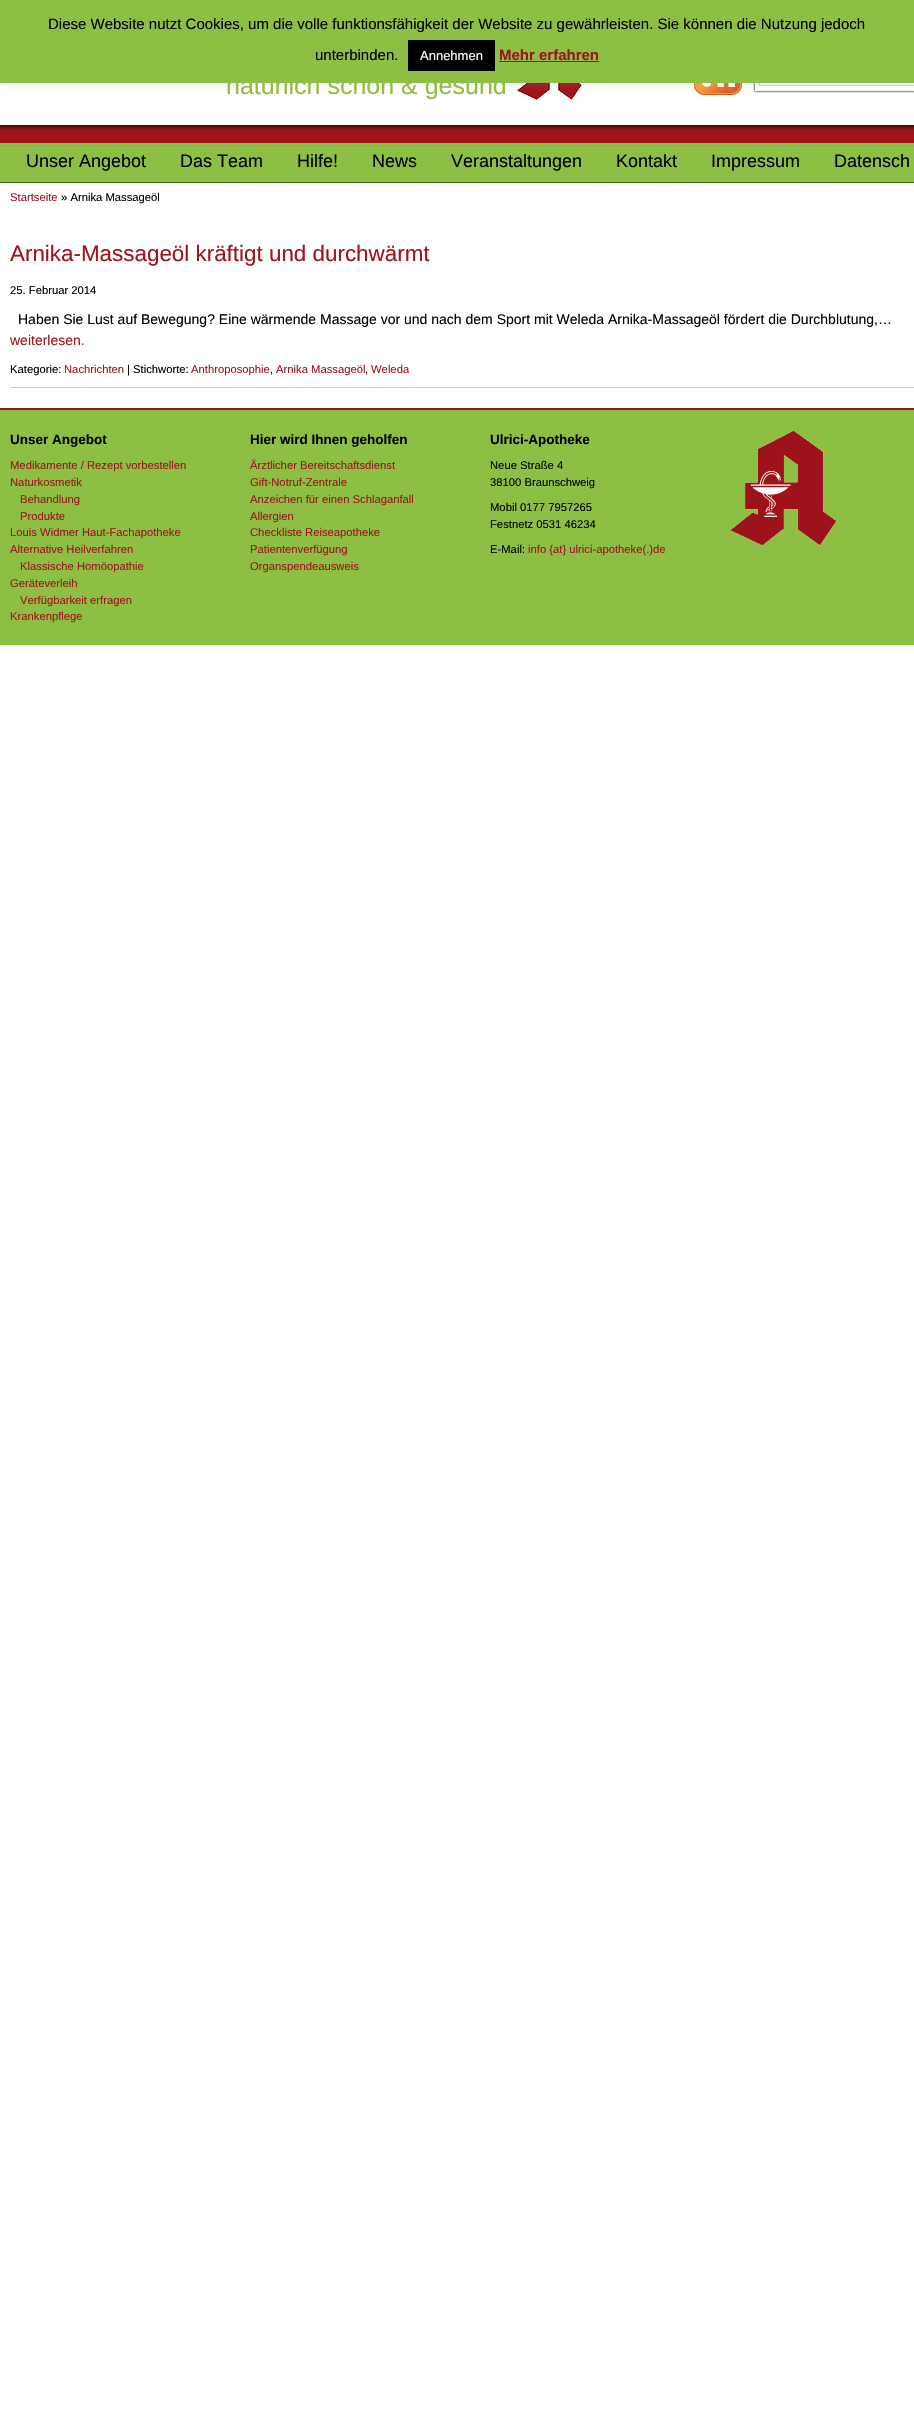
void draw(SkCanvas* canvas) {
  SkPaint paint;
  paint.setAntiAlias(true);
  auto face = [&](const char* family, int weight, float size, bool italic = false) {
    SkFontStyle style(weight, SkFontStyle::kNormal_Width,
      italic ? SkFontStyle::kItalic_Slant : SkFontStyle::kUpright_Slant);
    SkFont result(fontMgr->matchFamilyStyle(family, style), size);
    result.setSubpixel(true);
    return result;
  };
  auto paste = [&](const char* path, float x, float y, float w, float h) {
    auto image = SkImages::DeferredFromEncodedData(SkData::MakeFromFileName(path));
    canvas->drawImageRect(image, SkRect::MakeXYWH(x, y, w, h), SkSamplingOptions());
  };
  canvas->clear(0xffffffff);
  paste("img/1.png", 0, 83, 914, 109);
  paste("img/2.png", 517, 83, 65, 17);
  paste("img/3.png", 694, 83, 48, 12);
  paste("img/4.png", 753, 83, 161, 10);
  paint.setColor(0x4dacabab);
  paint.setMaskFilter(SkMaskFilter::MakeBlur(kNormal_SkBlurStyle, 5));
  canvas->drawRect(SkRect::MakeXYWH(0, -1, 914, 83), paint);
  paint.setMaskFilter(nullptr);
  {
    const struct { float x, y, w, h; SkColor color; } items[] = {
      {10, 387, 904, 1, 0xffcccccc},
      {0, 410, 914, 235, 0xff8dbf44},
      {0, 408, 914, 2, 0xff9d141c},
    };
    for (auto [x, y, w, h, color] : items) {
      paint.setColor(color);
      canvas->drawRect(SkRect::MakeXYWH(x, y, w, h), paint);
    }
  }
  paste("img/5.png", 730, 430, 107, 116);
  auto f0 = face("Liberation Sans", 400, 25);
  paint.setColor(0xff8ebe43);
  canvas->drawString("natürlich schön & gesund", 226, 94, f0, paint);
  paint.setColor(0xff8dbf44);
  canvas->drawRect(SkRect::MakeXYWH(0, 0, 914, 83), paint);
  paint.setColor(0xff000000);
  canvas->drawRect(SkRect::MakeXYWH(408, 40, 87, 31), paint);
  auto f1 = face("Liberation Sans", 400, 13);
  paint.setColor(0xffffffff);
  canvas->drawString("Annehmen", 420, 60, f1, paint);
  auto f2 = face("Liberation Sans", 700, 15);
  paint.setColor(0xff9d141c);
  canvas->drawString("Mehr erfahren", 499, 60, f2, paint);
  canvas->drawRect(SkRect::MakeXYWH(499, 61, 100, 1), paint);
  auto f3 = face("Liberation Sans", 400, 15);
  paint.setColor(0xff000000);
  canvas->drawString("unterbinden.", 315, 60, f3, paint);
  canvas->drawString("Diese Website nutzt Cookies, um die volle funktionsfähigkeit der Website zu gewährleisten. Sie können die Nutzung jedoch", 48, 29, f3, paint);
  auto f4 = face("Liberation Sans", 400, 18);
  {
    const struct { const char* s; float x, y; } items[] = {
      {"Unser Angebot", 26, 167},
      {"Das Team", 180, 167},
      {"Hilfe!", 297, 167},
      {"News", 372, 167},
      {"Veranstaltungen", 451, 167},
      {"Kontakt", 616, 167},
      {"Impressum", 711, 167},
      {"Datensch", 834, 167},
    };
    for (auto [s, x, y] : items) {
      canvas->drawString(s, x, y, f4, paint);
    }
  }
  auto f5 = face("Liberation Sans", 400, 11.25f);
  paint.setColor(0xff9d141c);
  canvas->drawString("Startseite", 10, 201, f5, paint);
  paint.setColor(0xff000000);
  canvas->drawString("» Arnika Massageöl", 61, 201, f5, paint);
  auto f6 = face("Liberation Sans", 400, 22.4f);
  paint.setColor(0xff9d141c);
  canvas->drawString("Arnika-Massageöl kräftigt und durchwärmt", 10, 261, f6, paint);
  paint.setColor(0xff000000);
  canvas->drawString("25. Februar 2014", 10, 294, f5, paint);
  auto f7 = face("Liberation Sans", 400, 14);
  canvas->drawString("Haben Sie Lust auf Bewegung? Eine wärmende Massage vor und nach dem Sport mit Weleda Arnika-Massageöl fördert die Durchblutung,…", 18, 324, f7, paint);
  paint.setColor(0xff9d141c);
  canvas->drawString("weiterlesen.", 10, 345, f7, paint);
  paint.setColor(0xff000000);
  canvas->drawString("Kategorie:", 10, 373, f5, paint);
  paint.setColor(0xff9d141c);
  canvas->drawString("Nachrichten", 64, 373, f5, paint);
  paint.setColor(0xff000000);
  canvas->drawString("| Stichworte:", 127, 373, f5, paint);
  paint.setColor(0xff9d141c);
  canvas->drawString("Anthroposophie", 191, 373, f5, paint);
  paint.setColor(0xff000000);
  canvas->drawString(",", 270, 373, f5, paint);
  paint.setColor(0xff9d141c);
  canvas->drawString("Arnika Massageöl", 276, 373, f5, paint);
  paint.setColor(0xff000000);
  canvas->drawString(",", 365, 373, f5, paint);
  paint.setColor(0xff9d141c);
  canvas->drawString("Weleda", 371, 373, f5, paint);
  auto f8 = face("Liberation Sans", 700, 13.5f);
  paint.setColor(0xff000000);
  canvas->drawString("Unser Angebot", 10, 444, f8, paint);
  paint.setColor(0xff9d141c);
  {
    const struct { const char* s; float x, y; } items[] = {
      {"Medikamente / Rezept vorbestellen", 10, 469},
      {"Naturkosmetik", 10, 486},
      {"Behandlung", 20, 503},
      {"Produkte", 20, 520},
      {"Louis Widmer Haut-Fachapotheke", 10, 536},
      {"Alternative Heilverfahren", 10, 553},
      {"Klassische Homöopathie", 20, 570},
      {"Geräteverleih", 10, 587},
      {"Verfügbarkeit erfragen", 20, 604},
      {"Krankenpflege", 10, 620},
    };
    for (auto [s, x, y] : items) {
      canvas->drawString(s, x, y, f5, paint);
    }
  }
  paint.setColor(0xff000000);
  canvas->drawString("Hier wird Ihnen geholfen", 250, 444, f8, paint);
  paint.setColor(0xff9d141c);
  {
    const struct { const char* s; float x, y; } items[] = {
      {"Ärztlicher Bereitschaftsdienst", 250, 469},
      {"Gift-Notruf-Zentrale", 250, 486},
      {"Anzeichen für einen Schlaganfall", 250, 503},
      {"Allergien", 250, 520},
      {"Checkliste Reiseapotheke", 250, 536},
      {"Patientenverfügung", 250, 553},
      {"Organspendeausweis", 250, 570},
    };
    for (auto [s, x, y] : items) {
      canvas->drawString(s, x, y, f5, paint);
    }
  }
  paint.setColor(0xff000000);
  canvas->drawString("Ulrici-Apotheke", 490, 444, f8, paint);
  {
    const struct { const char* s; float x, y; } items[] = {
      {"Neue Straße 4", 490, 469},
      {"38100 Braunschweig", 490, 486},
      {"Mobil 0177 7957265", 490, 511},
      {"Festnetz 0531 46234", 490, 528},
      {"E-Mail:", 490, 553},
    };
    for (auto [s, x, y] : items) {
      canvas->drawString(s, x, y, f5, paint);
    }
  }
  paint.setColor(0xff9d141c);
  canvas->drawString("info {at} ulrici-apotheke(.)de", 528, 553, f5, paint);
}
